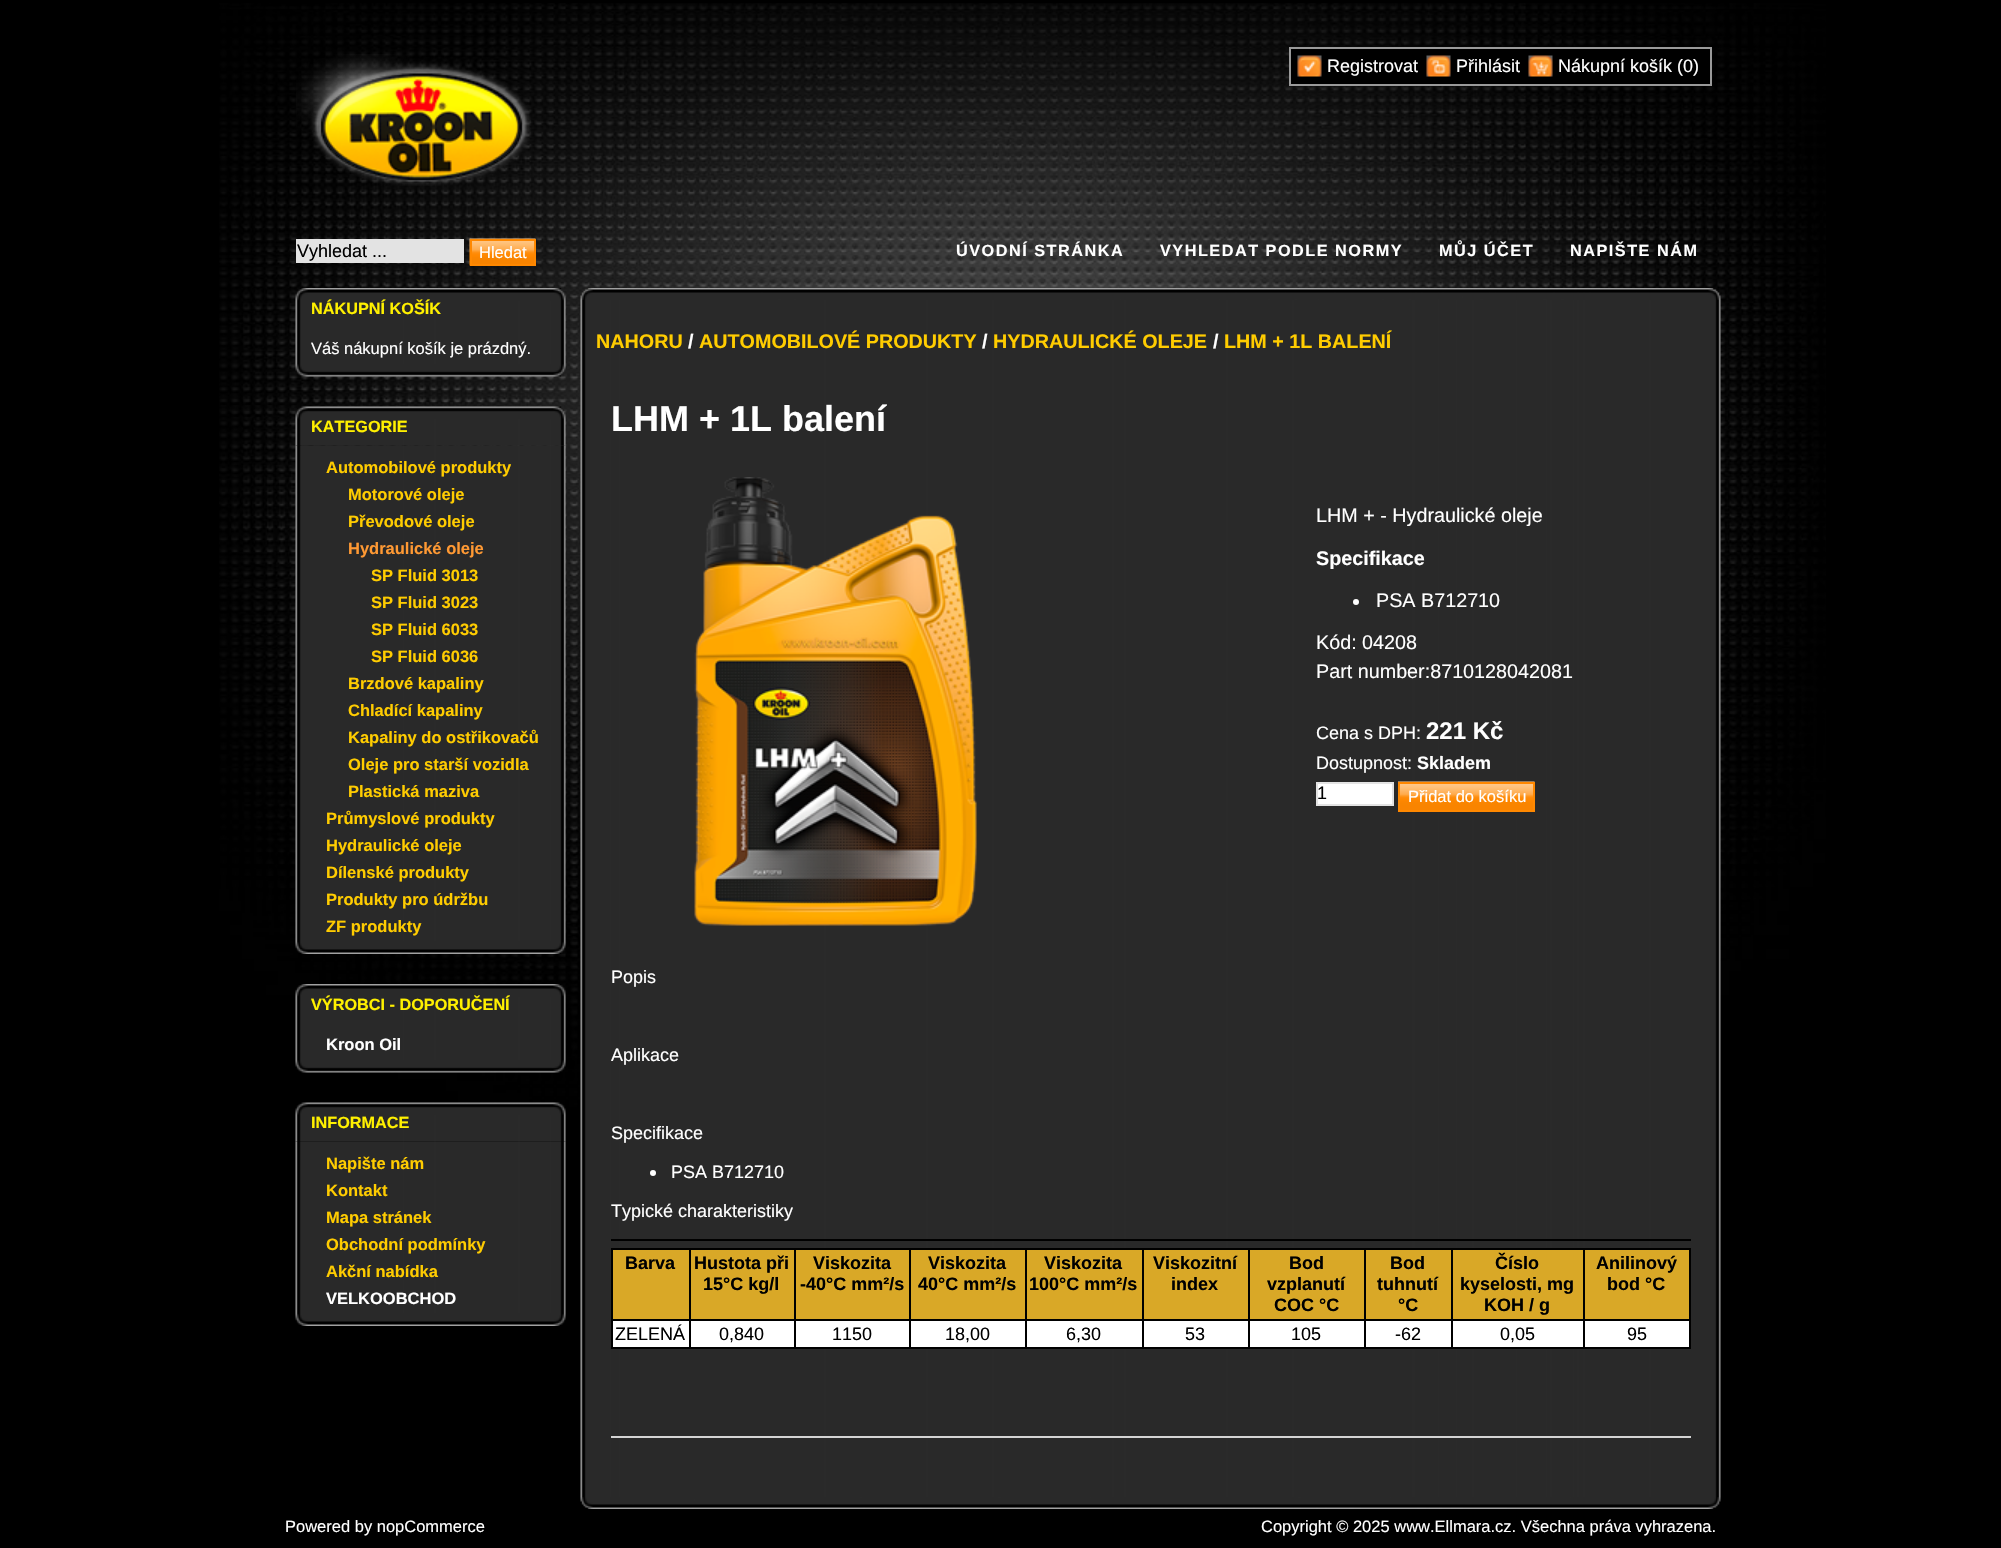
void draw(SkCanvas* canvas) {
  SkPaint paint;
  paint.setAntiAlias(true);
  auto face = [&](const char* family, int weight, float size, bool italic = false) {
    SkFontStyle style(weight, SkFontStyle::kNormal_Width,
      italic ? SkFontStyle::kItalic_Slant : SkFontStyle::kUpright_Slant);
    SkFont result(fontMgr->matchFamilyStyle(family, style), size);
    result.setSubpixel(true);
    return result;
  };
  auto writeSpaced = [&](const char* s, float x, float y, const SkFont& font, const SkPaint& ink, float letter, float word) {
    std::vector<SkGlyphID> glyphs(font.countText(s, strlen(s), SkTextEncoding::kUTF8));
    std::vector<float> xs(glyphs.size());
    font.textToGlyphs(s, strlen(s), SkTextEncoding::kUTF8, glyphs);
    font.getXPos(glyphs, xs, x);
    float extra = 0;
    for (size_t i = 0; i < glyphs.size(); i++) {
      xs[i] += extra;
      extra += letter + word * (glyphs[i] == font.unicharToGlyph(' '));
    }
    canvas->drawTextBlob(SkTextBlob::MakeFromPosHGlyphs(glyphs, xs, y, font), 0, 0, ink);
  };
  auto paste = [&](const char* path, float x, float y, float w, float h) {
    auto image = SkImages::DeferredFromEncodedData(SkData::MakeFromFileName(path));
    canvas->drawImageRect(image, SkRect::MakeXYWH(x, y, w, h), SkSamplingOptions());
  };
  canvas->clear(0xff000000);
  paste("img/1.png", 219, 3, 1607, 1104);
  paste("img/2.png", 296, 54, 235, 132);
  paint.setColor(0xff000000);
  canvas->drawRect(SkRect::MakeXYWH(1290, 48, 421, 37), paint);
  paint.setStroke(true);
  paint.setStrokeWidth(2);
  paint.setColor(0xff9a9a9a);
  canvas->drawRect(SkRect::MakeXYWH(1290, 48, 421, 37), paint);
  paste("img/3.png", 1297, 55, 25, 22);
  paste("img/4.png", 1426, 55, 25, 22);
  paste("img/5.png", 1528, 55, 25, 22);
  paint.setStroke(false);
  paint.setColor(0xffe3e3e3);
  canvas->drawRect(SkRect::MakeXYWH(296, 239, 168, 24), paint);
  paste("img/6.png", 469, 238, 67, 28);
  paint.setStroke(true);
  paint.setColor(0xffff8800);
  canvas->drawRect(SkRect::MakeXYWH(471, 240, 64, 25), paint);
  paste("img/7.png", 295, 288, 271, 39);
  paste("img/8.png", 295, 327, 271, 50);
  paste("img/9.png", 295, 406, 271, 40);
  paste("img/10.png", 295, 445, 271, 509);
  paste("img/11.png", 295, 984, 271, 39);
  paste("img/12.png", 295, 1023, 271, 50);
  paste("img/13.png", 295, 1102, 271, 40);
  paste("img/14.png", 295, 1141, 271, 185);
  paste("img/15.png", 580, 288, 1141, 12);
  paste("img/16.png", 580, 300, 1141, 1197);
  paste("img/17.png", 694, 477, 283, 449);
  paint.setStroke(false);
  paint.setColor(0xffffffff);
  canvas->drawCircle(1356, 602, 3, paint);
  canvas->drawRect(SkRect::MakeXYWH(1317, 783, 76, 22), paint);
  paint.setStroke(true);
  paint.setColor(0xffe3e3e3);
  canvas->drawRect(SkRect::MakeXYWH(1317, 783, 76, 22), paint);
  paste("img/18.png", 1398, 781, 137, 29);
  paint.setColor(0xffff8800);
  canvas->drawRect(SkRect::MakeXYWH(1399, 783, 135, 28), paint);
  paint.setStroke(false);
  paint.setColor(0xffd3d3d3);
  canvas->drawRect(SkRect::MakeXYWH(611, 1436, 1080, 2), paint);
  paint.setColor(0xffffffff);
  canvas->drawCircle(653, 1173, 3, paint);
  {
    const struct { float x, y, w, h; SkColor color; } items[] = {
      {611, 1239, 1080, 2, 0xff000000},
      {613, 1248, 1076, 2, 0xff000000},
      {611, 1248, 2, 101, 0xff000000},
      {613, 1250, 76, 69, 0xffd9a827},
      {1689, 1248, 2, 101, 0xff000000},
      {1583, 1347, 108, 2, 0xff000000},
      {1583, 1319, 2, 30, 0xff000000},
      {1583, 1319, 108, 2, 0xff000000},
      {1583, 1248, 2, 72, 0xff000000},
      {1451, 1347, 133, 2, 0xff000000},
      {1451, 1319, 2, 30, 0xff000000},
      {1451, 1319, 133, 2, 0xff000000},
      {1451, 1248, 2, 72, 0xff000000},
      {1364, 1347, 88, 2, 0xff000000},
      {1364, 1319, 2, 30, 0xff000000},
      {1364, 1319, 88, 2, 0xff000000},
      {1364, 1248, 2, 72, 0xff000000},
      {1248, 1347, 117, 2, 0xff000000},
      {1248, 1319, 2, 30, 0xff000000},
      {1248, 1319, 117, 2, 0xff000000},
      {1248, 1248, 2, 72, 0xff000000},
      {1142, 1347, 108, 2, 0xff000000},
      {1142, 1319, 2, 30, 0xff000000},
      {1142, 1319, 108, 2, 0xff000000},
      {1142, 1248, 2, 72, 0xff000000},
      {1025, 1347, 118, 2, 0xff000000},
      {1025, 1319, 2, 30, 0xff000000},
      {1025, 1319, 118, 2, 0xff000000},
      {1025, 1248, 2, 72, 0xff000000},
      {909, 1347, 117, 2, 0xff000000},
      {909, 1319, 2, 30, 0xff000000},
      {909, 1319, 117, 2, 0xff000000},
      {909, 1248, 2, 72, 0xff000000},
      {794, 1347, 117, 2, 0xff000000},
      {794, 1319, 2, 30, 0xff000000},
      {794, 1319, 117, 2, 0xff000000},
      {794, 1248, 2, 72, 0xff000000},
      {689, 1347, 106, 2, 0xff000000},
      {689, 1319, 2, 30, 0xff000000},
      {689, 1319, 106, 2, 0xff000000},
      {689, 1248, 2, 72, 0xff000000},
      {611, 1319, 79, 2, 0xff000000},
      {691, 1250, 103, 69, 0xffd9a827},
      {796, 1250, 113, 69, 0xffd9a827},
      {911, 1250, 114, 69, 0xffd9a827},
      {1027, 1250, 115, 69, 0xffd9a827},
      {1144, 1250, 104, 69, 0xffd9a827},
      {1250, 1250, 114, 69, 0xffd9a827},
      {1366, 1250, 85, 69, 0xffd9a827},
      {1453, 1250, 130, 69, 0xffd9a827},
      {1585, 1250, 104, 69, 0xffd9a827},
      {613, 1321, 76, 26, 0xffffffff},
      {611, 1347, 79, 2, 0xff000000},
      {691, 1321, 103, 26, 0xffffffff},
      {796, 1321, 113, 26, 0xffffffff},
      {911, 1321, 114, 26, 0xffffffff},
      {1027, 1321, 115, 26, 0xffffffff},
      {1144, 1321, 104, 26, 0xffffffff},
      {1250, 1321, 114, 26, 0xffffffff},
      {1366, 1321, 85, 26, 0xffffffff},
      {1453, 1321, 130, 26, 0xffffffff},
      {1585, 1321, 104, 26, 0xffffffff},
    };
    for (auto [x, y, w, h, color] : items) {
      paint.setColor(color);
      canvas->drawRect(SkRect::MakeXYWH(x, y, w, h), paint);
    }
  }
  paste("img/19.png", 580, 1497, 1141, 12);
  auto f0 = face("Liberation Sans", 400, 18);
  {
    const struct { const char* s; float x, y; } items[] = {
      {"Registrovat", 1327, 72},
      {"Přihlásit", 1456, 72},
      {"Nákupní košík (0)", 1558, 72},
    };
    for (auto [s, x, y] : items) {
      canvas->drawString(s, x, y, f0, paint);
    }
  }
  paint.setColor(0xff000000);
  canvas->drawString("Vyhledat ...", 297, 257, f0, paint);
  auto f1 = face("Liberation Sans", 400, 16.5f);
  paint.setColor(0xffffffff);
  canvas->drawString("Hledat", 479, 258, f1, paint);
  auto f2 = face("Liberation Sans", 700, 16.25f);
  {
    const struct { const char* s; float x, y; } items[] = {
      {"ÚVODNÍ STRÁNKA", 956, 256},
      {"VYHLEDAT PODLE NORMY", 1160, 256},
      {"MŮJ ÚČET", 1439, 256},
      {"NAPIŠTE NÁM", 1570, 256},
    };
    for (auto [s, x, y] : items) {
      writeSpaced(s, x, y, f2, paint, 1.5f, 0);
    }
  }
  paint.setColor(0xfffff000);
  canvas->drawString("NÁKUPNÍ KOŠÍK", 311, 314, f2, paint);
  paint.setColor(0xffffffff);
  canvas->drawString("Váš nákupní košík je prázdný.", 311, 354, f1, paint);
  paint.setColor(0xfffff000);
  canvas->drawString("KATEGORIE", 311, 432, f2, paint);
  auto f3 = face("Liberation Sans", 700, 16.5f);
  paint.setColor(0xffffcc00);
  {
    const struct { const char* s; float x, y; } items[] = {
      {"Automobilové produkty", 326, 473},
      {"Motorové oleje", 348, 500},
      {"Převodové oleje", 348, 527},
    };
    for (auto [s, x, y] : items) {
      canvas->drawString(s, x, y, f3, paint);
    }
  }
  paint.setColor(0xffff9933);
  canvas->drawString("Hydraulické oleje", 348, 554, f3, paint);
  paint.setColor(0xffffcc00);
  {
    const struct { const char* s; float x, y; } items[] = {
      {"SP Fluid 3013", 371, 581},
      {"SP Fluid 3023", 371, 608},
      {"SP Fluid 6033", 371, 635},
      {"SP Fluid 6036", 371, 662},
      {"Brzdové kapaliny", 348, 689},
      {"Chladící kapaliny", 348, 716},
      {"Kapaliny do ostřikovačů", 348, 743},
      {"Oleje pro starší vozidla", 348, 770},
      {"Plastická maziva", 348, 797},
      {"Průmyslové produkty", 326, 824},
      {"Hydraulické oleje", 326, 851},
      {"Dílenské produkty", 326, 878},
      {"Produkty pro údržbu", 326, 905},
      {"ZF produkty", 326, 932},
    };
    for (auto [s, x, y] : items) {
      canvas->drawString(s, x, y, f3, paint);
    }
  }
  paint.setColor(0xfffff000);
  canvas->drawString("VÝROBCI - DOPORUČENÍ", 311, 1010, f2, paint);
  paint.setColor(0xffffffff);
  canvas->drawString("Kroon Oil", 326, 1050, f3, paint);
  paint.setColor(0xfffff000);
  canvas->drawString("INFORMACE", 311, 1128, f2, paint);
  paint.setColor(0xffffcc00);
  {
    const struct { const char* s; float x, y; } items[] = {
      {"Napište nám", 326, 1169},
      {"Kontakt", 326, 1196},
      {"Mapa stránek", 326, 1223},
      {"Obchodní podmínky", 326, 1250},
      {"Akční nabídka", 326, 1277},
    };
    for (auto [s, x, y] : items) {
      canvas->drawString(s, x, y, f3, paint);
    }
  }
  paint.setColor(0xffffffff);
  canvas->drawString("VELKOOBCHOD", 326, 1304, f3, paint);
  auto f4 = face("Liberation Sans", 700, 19.75f);
  paint.setColor(0xffffcc00);
  canvas->drawString("NAHORU", 596, 348, f4, paint);
  paint.setColor(0xffffffff);
  canvas->drawString("/", 688, 348, f4, paint);
  paint.setColor(0xffffcc00);
  canvas->drawString("AUTOMOBILOVÉ PRODUKTY", 699, 348, f4, paint);
  paint.setColor(0xffffffff);
  canvas->drawString("/", 982, 348, f4, paint);
  paint.setColor(0xffffcc00);
  canvas->drawString("HYDRAULICKÉ OLEJE", 993, 348, f4, paint);
  paint.setColor(0xffffffff);
  canvas->drawString("/", 1213, 348, f4, paint);
  paint.setColor(0xffffcc00);
  canvas->drawString("LHM + 1L BALENÍ", 1224, 348, f4, paint);
  auto f5 = face("Liberation Sans", 700, 36);
  paint.setColor(0xffffffff);
  canvas->drawString("LHM + 1L balení", 611, 431, f5, paint);
  auto f6 = face("Liberation Sans", 400, 19.75f);
  canvas->drawString("LHM + - Hydraulické oleje", 1316, 522, f6, paint);
  canvas->drawString("Specifikace", 1316, 565, f4, paint);
  {
    const struct { const char* s; float x, y; } items[] = {
      {"PSA B712710", 1376, 607},
      {"Kód: 04208", 1316, 649},
      {"Part number:8710128042081", 1316, 678},
    };
    for (auto [s, x, y] : items) {
      canvas->drawString(s, x, y, f6, paint);
    }
  }
  canvas->drawString("Cena s DPH:", 1316, 739, f0, paint);
  auto f7 = face("Liberation Sans", 700, 24);
  canvas->drawString("221 Kč", 1426, 739, f7, paint);
  canvas->drawString("Dostupnost:", 1316, 769, f0, paint);
  auto f8 = face("Liberation Sans", 700, 18);
  canvas->drawString("Skladem", 1417, 769, f8, paint);
  paint.setColor(0xff000000);
  canvas->drawString("1", 1317, 799, f0, paint);
  paint.setColor(0xffffffff);
  canvas->drawString("Přidat do košíku", 1408, 802, f1, paint);
  {
    const struct { const char* s; float x, y; } items[] = {
      {"Popis", 611, 983},
      {"Aplikace", 611, 1061},
      {"Specifikace", 611, 1139},
      {"PSA B712710", 671, 1178},
      {"Typické charakteristiky", 611, 1217},
    };
    for (auto [s, x, y] : items) {
      canvas->drawString(s, x, y, f0, paint);
    }
  }
  paint.setColor(0xff000000);
  {
    const struct { const char* s; float x, y; } items[] = {
      {"Barva", 625, 1269},
      {"Hustota při", 694, 1269},
      {"15°C kg/l", 703, 1290},
      {"Viskozita", 813, 1269},
      {"-40°C mm²/s", 800, 1290},
      {"Viskozita", 928, 1269},
      {"40°C mm²/s", 918, 1290},
      {"Viskozita", 1044, 1269},
      {"100°C mm²/s", 1029, 1290},
      {"Viskozitní", 1153, 1269},
      {"index", 1171, 1290},
      {"Bod", 1289, 1269},
      {"vzplanutí", 1267, 1290},
      {"COC °C", 1274, 1311},
      {"Bod", 1390, 1269},
      {"tuhnutí", 1377, 1290},
      {"°C", 1398, 1311},
      {"Číslo", 1495, 1269},
      {"kyselosti, mg", 1460, 1290},
      {"KOH / g", 1484, 1311},
      {"Anilinový", 1596, 1269},
      {"bod °C", 1607, 1290},
    };
    for (auto [s, x, y] : items) {
      canvas->drawString(s, x, y, f8, paint);
    }
  }
  {
    const struct { const char* s; float x, y; } items[] = {
      {"ZELENÁ", 615, 1340},
      {"0,840", 719, 1340},
      {"1150", 832, 1340},
      {"18,00", 945, 1340},
      {"6,30", 1066, 1340},
      {"53", 1185, 1340},
      {"105", 1291, 1340},
      {"-62", 1395, 1340},
      {"0,05", 1500, 1340},
      {"95", 1627, 1340},
    };
    for (auto [s, x, y] : items) {
      canvas->drawString(s, x, y, f0, paint);
    }
  }
  paint.setColor(0xffffffff);
  canvas->drawString("Powered by nopCommerce", 285, 1532, f1, paint);
  canvas->drawString("Copyright © 2025 www.Ellmara.cz. Všechna práva vyhrazena.", 1261, 1532, f1, paint);
}
